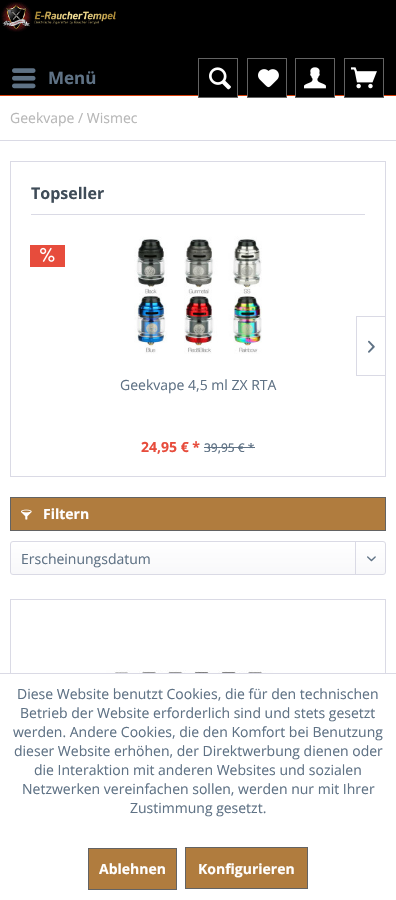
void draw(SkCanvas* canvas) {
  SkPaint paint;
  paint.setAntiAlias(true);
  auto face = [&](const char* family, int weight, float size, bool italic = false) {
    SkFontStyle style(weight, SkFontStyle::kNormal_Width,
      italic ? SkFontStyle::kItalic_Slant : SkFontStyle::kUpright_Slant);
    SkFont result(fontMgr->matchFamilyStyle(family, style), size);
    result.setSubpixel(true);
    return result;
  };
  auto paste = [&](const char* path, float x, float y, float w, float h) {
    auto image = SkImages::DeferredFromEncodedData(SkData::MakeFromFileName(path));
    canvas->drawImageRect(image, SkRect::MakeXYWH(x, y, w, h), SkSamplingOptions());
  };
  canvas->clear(0xff000000);
  paint.setColor(0xffd9400b);
  canvas->drawRect(SkRect::MakeXYWH(0, 95, 396, 1), paint);
  paste("img/1.png", 1, 2, 115, 30);
  paste("img/2.png", 12, 68, 24, 21);
  paint.setColor(0xffffffff);
  canvas->drawRect(SkRect::MakeXYWH(0, 96, 396, 577), paint);
  paint.setColor(0xff000000);
  canvas->drawRect(SkRect::MakeXYWH(199, 95, 38, 2), paint);
  paint.setStroke(true);
  paint.setStrokeWidth(1);
  paint.setColor(0xff636363);
  canvas->drawRect(SkRect::MakeXYWH(198.5f, 58.5f, 39, 39), paint);
  paste("img/3.png", 209, 67, 22, 23);
  paint.setStroke(false);
  paint.setColor(0xff000000);
  canvas->drawRect(SkRect::MakeXYWH(248, 95, 38, 2), paint);
  paint.setStroke(true);
  paint.setColor(0xff636363);
  canvas->drawRect(SkRect::MakeXYWH(247.5f, 58.5f, 39, 39), paint);
  paste("img/4.png", 258, 69, 21, 19);
  paint.setStroke(false);
  paint.setColor(0xff000000);
  canvas->drawRect(SkRect::MakeXYWH(296, 95, 38, 2), paint);
  paint.setStroke(true);
  paint.setColor(0xff636363);
  canvas->drawRect(SkRect::MakeXYWH(295.5f, 58.5f, 39, 39), paint);
  paste("img/5.png", 304, 67, 22, 22);
  paint.setStroke(false);
  paint.setColor(0xff000000);
  canvas->drawRect(SkRect::MakeXYWH(345, 95, 38, 2), paint);
  paint.setStroke(true);
  paint.setColor(0xff636363);
  canvas->drawRect(SkRect::MakeXYWH(344.5f, 58.5f, 39, 39), paint);
  paste("img/6.png", 351, 67, 26, 22);
  paint.setStroke(false);
  paint.setColor(0xffdadae5);
  canvas->drawRect(SkRect::MakeXYWH(0, 140, 396, 1), paint);
  paint.setStroke(true);
  canvas->drawRect(SkRect::MakeXYWH(10.5f, 161.5f, 375, 315), paint);
  paint.setStroke(false);
  canvas->drawRect(SkRect::MakeXYWH(31, 214, 334, 1), paint);
  paint.setStroke(true);
  canvas->drawRect(SkRect::MakeXYWH(356.5f, 316.5f, 29, 59), paint);
  paste("img/7.png", 368, 340, 7, 13);
  paint.setStroke(false);
  paint.setColor(0xffe74c3c);
  canvas->drawRect(SkRect::MakeXYWH(30, 245, 35, 22), paint);
  paste("img/8.png", 40, 247, 15, 15);
  paste("img/9.png", 134, 236, 128, 118);
  paint.setColor(0xff5f7285);
  canvas->drawRect(SkRect::MakeXYWH(204, 447, 51, 1), paint);
  paint.setColor(0xffb07c3e);
  canvas->drawRect(SkRect::MakeXYWH(10.5f, 497.5f, 375, 33), paint);
  paint.setStroke(true);
  paint.setColor(0xff636363);
  canvas->drawRect(SkRect::MakeXYWH(10.5f, 497.5f, 375, 33), paint);
  paste("img/10.png", 21, 509, 11, 11);
  paint.setStroke(false);
  {
    const SkColor colors[] = {0xffffffff, 0xfff8f8fa};
    const float stops[] = {0, 1};
    const SkPoint ends[] = {{198, 542}, {198, 574}};
    paint.setShader(SkGradientShader::MakeLinear(ends, colors, stops, 2, SkTileMode::kClamp));
    paint.setAlpha(255);
  }
  canvas->drawRoundRect(SkRect::MakeXYWH(11, 542, 374, 32), 2, 2, paint);
  paint.setStroke(true);
  paint.setShader(nullptr);
  paint.setColor(0xffdadae5);
  canvas->drawRoundRect(SkRect::MakeXYWH(10.5f, 541.5f, 375, 33), 2.5f, 2.5f, paint);
  paint.setStroke(false);
  canvas->drawRect(SkRect::MakeXYWH(355, 542, 1, 33), paint);
  paste("img/11.png", 367, 556, 9, 6);
  paint.setStroke(true);
  canvas->drawRect(SkRect::MakeXYWH(10.5f, 599.5f, 375, 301), paint);
  paste("img/12.png", 106, 670, 167, 3);
  paint.setStroke(false);
  paint.setColor(0xffffffff);
  canvas->drawRect(SkRect::MakeXYWH(0, 674, 396, 226), paint);
  paint.setColor(0xffdadae5);
  canvas->drawRect(SkRect::MakeXYWH(0, 673, 396, 1), paint);
  paint.setColor(0xffb07c3e);
  canvas->drawRect(SkRect::MakeXYWH(88.5f, 848.5f, 88, 41), paint);
  paint.setStroke(true);
  paint.setColor(0xff636363);
  canvas->drawRect(SkRect::MakeXYWH(88.5f, 848.5f, 88, 41), paint);
  paint.setStroke(false);
  paint.setColor(0xffb07c3e);
  canvas->drawRect(SkRect::MakeXYWH(185.5f, 847.5f, 122, 41), paint);
  paint.setStroke(true);
  paint.setColor(0xff636363);
  canvas->drawRect(SkRect::MakeXYWH(185.5f, 847.5f, 122, 41), paint);
  auto f0 = face("Open Sans", 700, 17);
  paint.setStroke(false);
  paint.setColor(0xff5f7285);
  canvas->drawString("Menü", 48, 84, f0, paint);
  auto f1 = face("Open Sans", 400, 14);
  paint.setColor(0xffb7b7b7);
  canvas->drawString("Geekvape / Wismec", 10, 123, f1, paint);
  auto f2 = face("Open Sans", 700, 16);
  paint.setColor(0xff3f4c58);
  canvas->drawString("Topseller", 31, 199, f2, paint);
  paint.setColor(0xff5f7285);
  canvas->drawString("Geekvape 4,5 ml ZX RTA", 120, 390, f1, paint);
  auto f3 = face("Open Sans", 700, 14);
  paint.setColor(0xffe74c3c);
  canvas->drawString("24,95 € *", 141, 452, f3, paint);
  auto f4 = face("Open Sans", 500, 12);
  paint.setColor(0xff5f7285);
  canvas->drawString("39,95 € *", 204, 452, f4, paint);
  paint.setColor(0xffffffff);
  canvas->drawString("Filtern", 43, 519, f3, paint);
  paint.setColor(0xff5f7285);
  {
    const struct { const char* s; float x, y; } items[] = {
      {"Erscheinungsdatum", 21, 564},
      {"Diese Website benutzt Cookies, die für den technischen", 17, 699},
      {"Betrieb der Website erforderlich sind und stets gesetzt", 20, 718},
      {"werden. Andere Cookies, die den Komfort bei Benutzung", 13, 737},
      {"dieser Website erhöhen, der Direktwerbung dienen oder", 14, 756},
      {"die Interaktion mit anderen Websites und sozialen", 34, 775},
      {"Netzwerken vereinfachen sollen, werden nur mit Ihrer", 22, 794},
      {"Zustimmung gesetzt.", 130, 813},
    };
    for (auto [s, x, y] : items) {
      canvas->drawString(s, x, y, f1, paint);
    }
  }
  paint.setColor(0xffffffff);
  canvas->drawString("Ablehnen", 99, 874, f3, paint);
  canvas->drawString("Konfigurieren", 198, 874, f3, paint);
}
